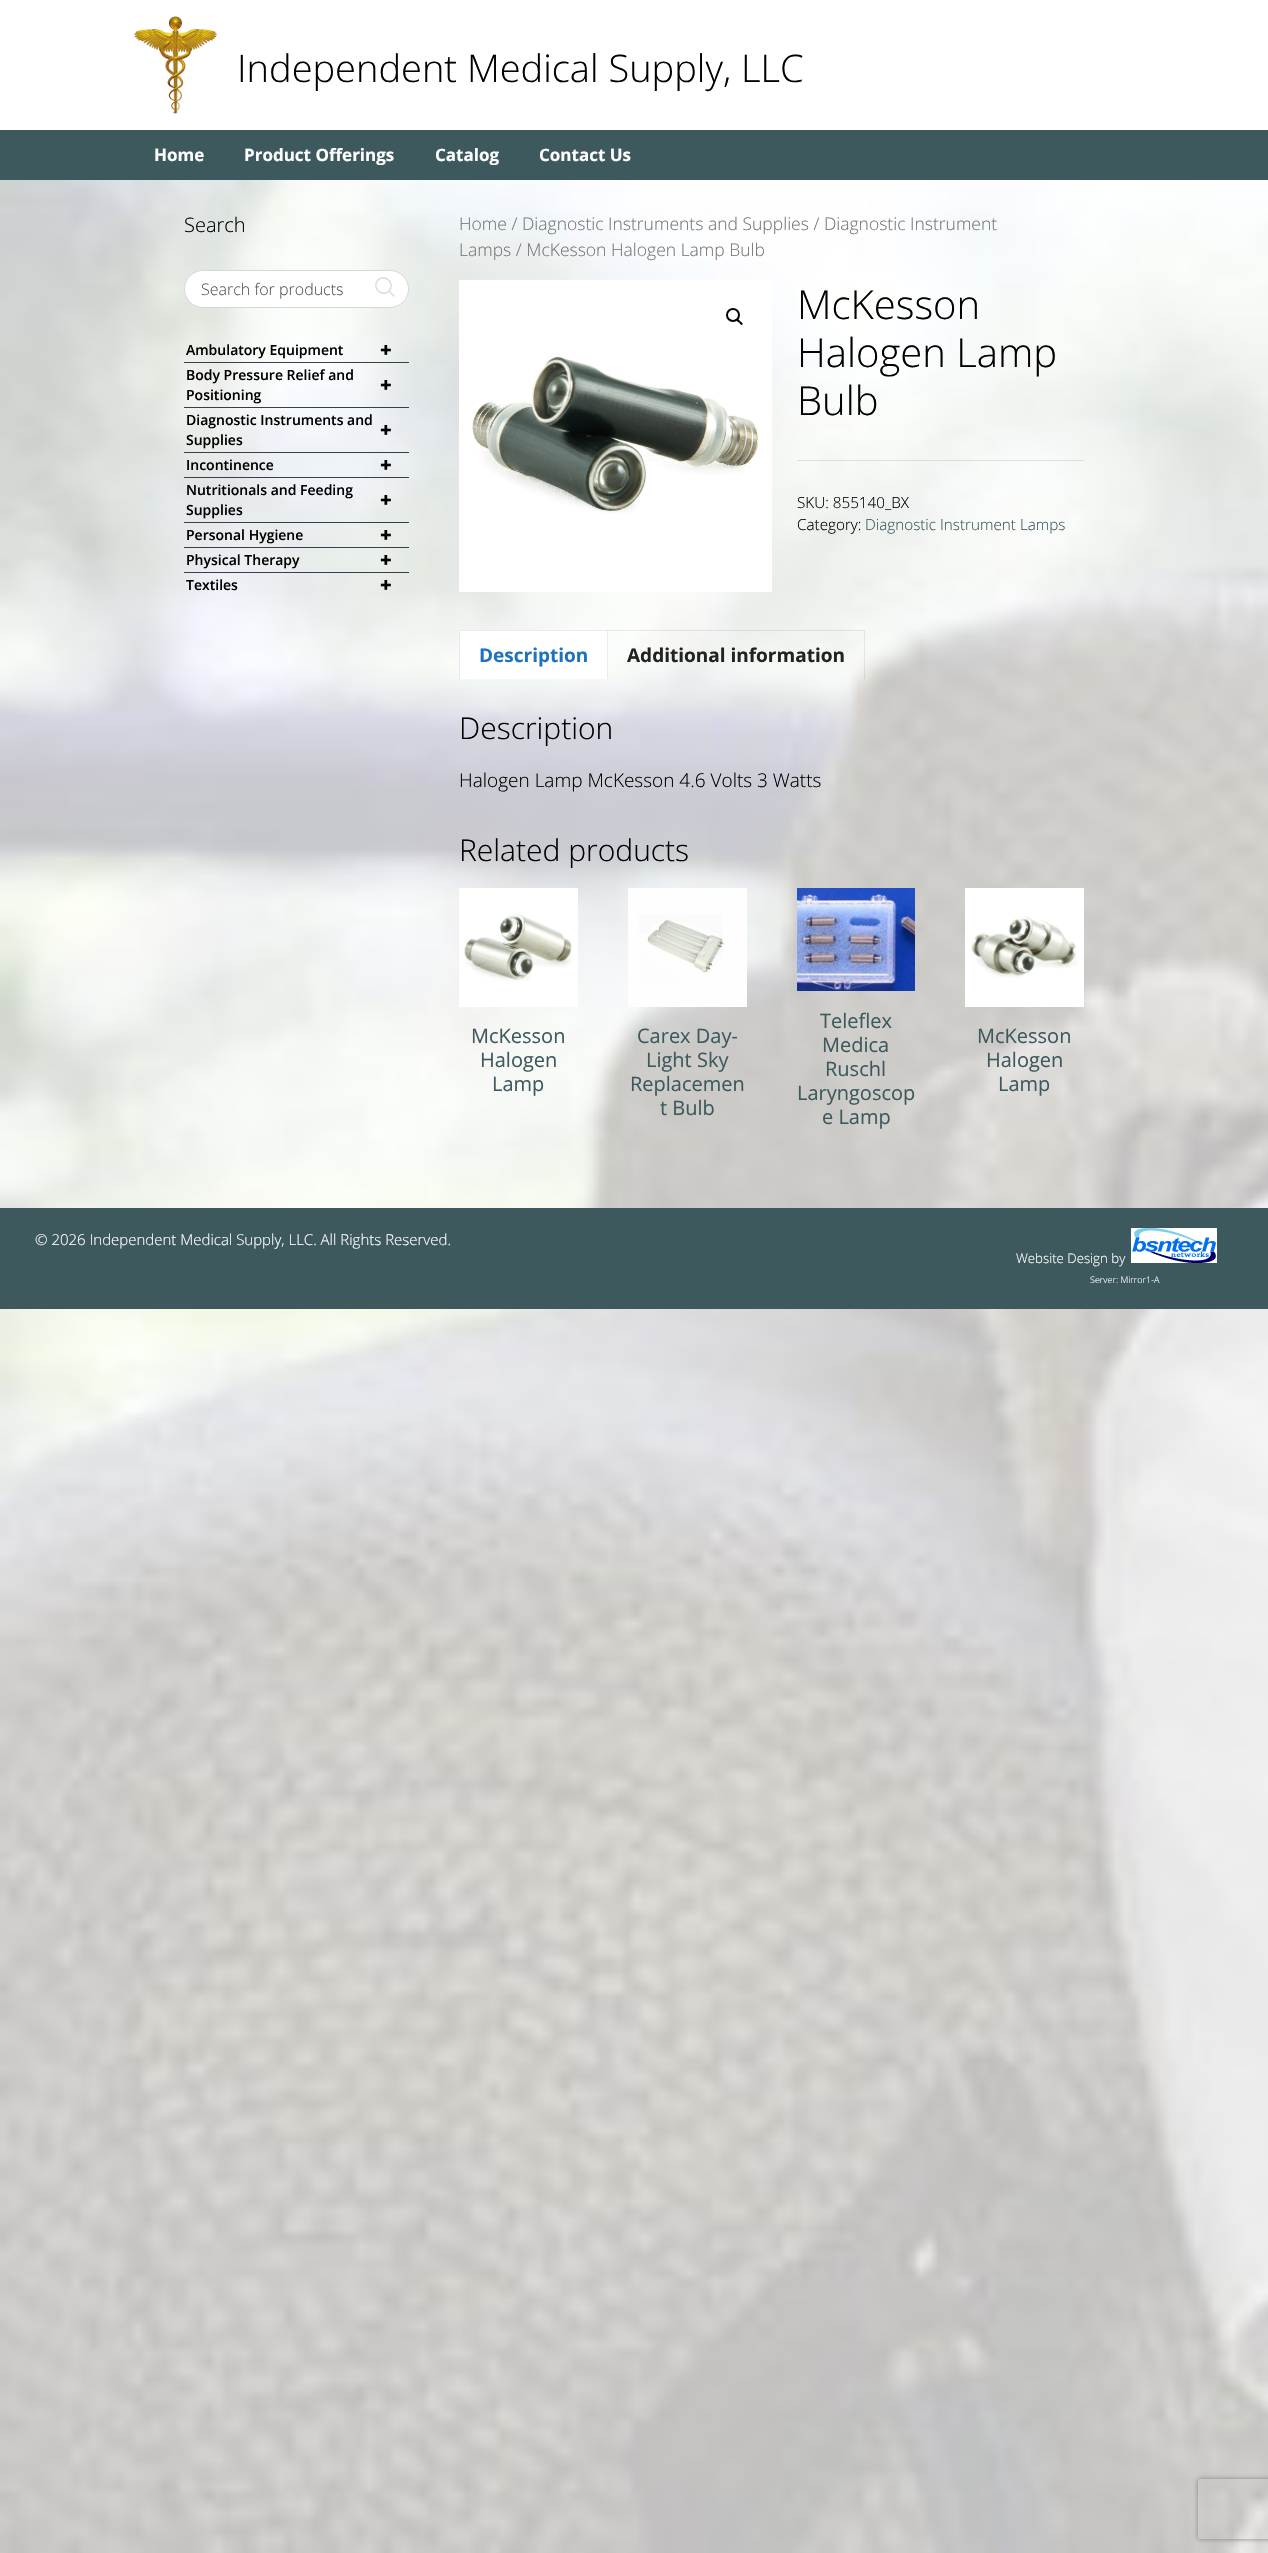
void draw(SkCanvas* canvas) {
  SkPaint paint;
  paint.setAntiAlias(true);
  auto face = [&](const char* family, int weight, float size, bool italic = false) {
    SkFontStyle style(weight, SkFontStyle::kNormal_Width,
      italic ? SkFontStyle::kItalic_Slant : SkFontStyle::kUpright_Slant);
    SkFont result(fontMgr->matchFamilyStyle(family, style), size);
    result.setSubpixel(true);
    return result;
  };
  auto paste = [&](const char* path, float x, float y, float w, float h) {
    auto image = SkImages::DeferredFromEncodedData(SkData::MakeFromFileName(path));
    canvas->drawImageRect(image, SkRect::MakeXYWH(x, y, w, h), SkSamplingOptions());
  };
  auto shape = [&](const char* data, bool evenOdd = false) {
    SkPath result = *SkParsePath::FromSVGString(data);
    if (evenOdd) result.setFillType(SkPathFillType::kEvenOdd);
    return result;
  };
  canvas->clear(0xffffffff);
  paste("img/1.png", 0, 180, 1268, 2373);
  paste("img/2.png", 134, 16, 83, 98);
  paint.setColor(0xff3d595e);
  canvas->drawRect(SkRect::MakeXYWH(0, 130, 1268, 50), paint);
  paint.setColor(0xffffffff);
  canvas->drawRoundRect(SkRect::MakeXYWH(184.5f, 270.5f, 224, 37), 18.5f, 18.5f, paint);
  paint.setStroke(true);
  paint.setStrokeWidth(1);
  paint.setColor(0xffd8d8d8);
  canvas->drawRoundRect(SkRect::MakeXYWH(184.5f, 270.5f, 224, 37), 18.5f, 18.5f, paint);
  paint.setStrokeWidth(1.5f);
  paint.setStrokeCap(SkPaint::kRound_Cap);
  paint.setStrokeJoin(SkPaint::kRound_Join);
  paint.setColor(0xffdcdcdc);
  canvas->drawPath(shape("M394 296L389 291M389 291C396 284 385 273 378 280C371 287 382 298 389 291Z"), paint);
  paint.setStroke(false);
  {
    const struct { float x, y, w, h; SkColor color; } items[] = {
      {184, 362, 225, 1, 0xff383f4a},
      {184, 407, 225, 1, 0xff383f4a},
      {184, 452, 225, 1, 0xff383f4a},
      {184, 477, 225, 1, 0xff383f4a},
      {184, 522, 225, 1, 0xff383f4a},
      {184, 547, 225, 1, 0xff383f4a},
      {184, 572, 225, 1, 0xff383f4a},
    };
    for (auto [x, y, w, h, color] : items) {
      paint.setColor(color);
      canvas->drawRect(SkRect::MakeXYWH(x, y, w, h), paint);
    }
  }
  paste("img/3.png", 459, 280, 313, 312);
  paint.setStroke(true);
  paint.setStrokeWidth(2);
  paint.setStrokeCap(SkPaint::kButt_Cap);
  paint.setStrokeJoin(SkPaint::kMiter_Join);
  paint.setColor(0xff000000);
  canvas->drawCircle(733, 315, 6, paint);
  paint.setStroke(false);
  canvas->drawPath(shape("M736.5 319C738 318 739.5 320.5 740 321C741 322 743.5 323.5 742.5 324.5C741 326 739.5 323 739 322.5C738 322 735.5 320.5 736.5 319Z"), paint);
  paint.setColor(0x1a000000);
  canvas->drawRect(SkRect::MakeXYWH(797, 460, 287, 1), paint);
  paint.setColor(0xffffffff);
  canvas->drawRect(SkRect::MakeXYWH(459, 630, 149, 49), paint);
  paint.setColor(0xffebebeb);
  canvas->drawPath(shape("M459 630H608L607 631H460Z"), paint);
  paint.setColor(0x14000000);
  canvas->drawPath(shape("M608 630V679H607V631Z"), paint);
  canvas->drawPath(shape("M459 679V630L460 631V679Z"), paint);
  canvas->drawPath(shape("M608 630H865L864 631H608Z"), paint);
  canvas->drawPath(shape("M865 630V679H864V631Z"), paint);
  paste("img/4.png", 459, 888, 119, 119);
  paste("img/5.png", 628, 888, 119, 119);
  paste("img/6.png", 797, 888, 118, 103);
  paste("img/7.png", 965, 888, 119, 119);
  paint.setColor(0xff3d595e);
  canvas->drawRect(SkRect::MakeXYWH(0, 1208, 1268, 101), paint);
  paste("img/8.png", 1131, 1228, 86, 35);
  canvas->save();
  canvas->clipPath(shape("M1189 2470H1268V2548H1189ZM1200 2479H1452C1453 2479 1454 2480 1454 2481V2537C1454 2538 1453 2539 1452 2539H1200C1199 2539 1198 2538 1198 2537V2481C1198 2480 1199 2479 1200 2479Z", true), true);
  paint.setColor(0xff808080);
  paint.setMaskFilter(SkMaskFilter::MakeBlur(kNormal_SkBlurStyle, 2.5f));
  canvas->drawRoundRect(SkRect::MakeXYWH(1198, 2479, 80, 60), 2, 2, paint);
  paint.setMaskFilter(nullptr);
  canvas->restore();
  auto f0 = face("Open Sans", 300, 38);
  paint.setColor(0xff000000);
  canvas->drawString("Independent Medical Supply, LLC", 237, 82, f0, paint);
  auto f1 = face("Open Sans", 700, 17);
  paint.setColor(0xffffffff);
  {
    const struct { const char* s; float x, y; } items[] = {
      {"Home", 154, 161},
      {"Product Offerings", 244, 161},
      {"Catalog", 435, 161},
      {"Contact Us", 539, 161},
    };
    for (auto [s, x, y] : items) {
      canvas->drawString(s, x, y, f1, paint);
    }
  }
  auto f2 = face("Open Sans", 300, 20);
  paint.setColor(0xff000000);
  canvas->drawString("Search", 184, 232, f2, paint);
  auto f3 = face("Open Sans", 300, 16);
  paint.setColor(0xff575757);
  canvas->drawString("Search for products", 201, 295, f3, paint);
  auto f4 = face("Open Sans", 600, 14);
  paint.setColor(0xff000000);
  canvas->drawString("Ambulatory Equipment", 186, 355, f4, paint);
  auto f5 = face("Open Sans", 800, 20);
  canvas->drawString("+", 380, 357, f5, paint);
  canvas->drawString("Body Pressure Relief and", 186, 380, f4, paint);
  canvas->drawString("+", 380, 392, f5, paint);
  canvas->drawString("Positioning", 186, 400, f4, paint);
  canvas->drawString("Diagnostic Instruments and", 186, 425, f4, paint);
  canvas->drawString("+", 380, 437, f5, paint);
  canvas->drawString("Supplies", 186, 445, f4, paint);
  canvas->drawString("Incontinence", 186, 470, f4, paint);
  canvas->drawString("+", 380, 472, f5, paint);
  canvas->drawString("Nutritionals and Feeding", 186, 495, f4, paint);
  canvas->drawString("+", 380, 507, f5, paint);
  canvas->drawString("Supplies", 186, 515, f4, paint);
  canvas->drawString("Personal Hygiene", 186, 540, f4, paint);
  canvas->drawString("+", 380, 542, f5, paint);
  canvas->drawString("Physical Therapy", 186, 565, f4, paint);
  canvas->drawString("+", 380, 567, f5, paint);
  canvas->drawString("Textiles", 186, 590, f4, paint);
  canvas->drawString("+", 380, 592, f5, paint);
  auto f6 = face("Open Sans", 300, 17.5f);
  paint.setColor(0xff767676);
  canvas->drawString("Home / Diagnostic Instruments and Supplies / Diagnostic Instrument", 459, 230, f6, paint);
  canvas->drawString("Lamps / McKesson Halogen Lamp Bulb", 459, 256, f6, paint);
  auto f7 = face("Open Sans", 300, 40);
  paint.setColor(0xff000000);
  {
    const struct { const char* s; float x, y; } items[] = {
      {"McKesson", 797, 319},
      {"Halogen Lamp", 797, 367},
      {"Bulb", 797, 415},
    };
    for (auto [s, x, y] : items) {
      canvas->drawString(s, x, y, f7, paint);
    }
  }
  auto f8 = face("Open Sans", 300, 15.25f);
  canvas->drawString("SKU: 855140_BX", 797, 508, f8, paint);
  canvas->drawString("Category:", 797, 530, f8, paint);
  paint.setColor(0xff3d595e);
  canvas->drawString("Diagnostic Instrument Lamps", 865, 530, f8, paint);
  auto f9 = face("Open Sans", 700, 19);
  paint.setColor(0xff1e73be);
  canvas->drawString("Description", 479, 662, f9, paint);
  paint.setColor(0xff222222);
  canvas->drawString("Additional information", 627, 662, f9, paint);
  auto f10 = face("Open Sans", 300, 30);
  paint.setColor(0xff000000);
  canvas->drawString("Description", 459, 739, f10, paint);
  auto f11 = face("Open Sans", 300, 19);
  canvas->drawString("Halogen Lamp McKesson 4.6 Volts 3 Watts", 459, 787, f11, paint);
  canvas->drawString("Related products", 459, 861, f10, paint);
  auto f12 = face("Open Sans", 400, 20);
  paint.setColor(0xff3d595e);
  {
    const struct { const char* s; float x, y; } items[] = {
      {"McKesson", 471, 1043},
      {"Halogen", 480, 1067},
      {"Lamp", 492, 1091},
      {"Carex Day-", 637, 1043},
      {"Light Sky", 646, 1067},
      {"Replacemen", 630, 1091},
      {"t Bulb", 660, 1115},
      {"Teleflex", 820, 1028},
      {"Medica", 822, 1052},
      {"Ruschl", 825, 1076},
      {"Laryngoscop", 797, 1100},
      {"e Lamp", 822, 1124},
      {"McKesson", 977, 1043},
      {"Halogen", 986, 1067},
      {"Lamp", 998, 1091},
    };
    for (auto [s, x, y] : items) {
      canvas->drawString(s, x, y, f12, paint);
    }
  }
  auto f13 = face("Open Sans", 300, 15);
  paint.setColor(0xffffffff);
  canvas->drawString("© 2026 Independent Medical Supply, LLC. All Rights Reserved.", 35, 1245, f13, paint);
  auto f14 = face("Open Sans", 300, 13.25f);
  canvas->drawString("Website Design by", 1016, 1263, f14, paint);
  auto f15 = face("Open Sans", 300, 9);
  canvas->drawString("Server: Mirror1-A", 1090, 1283, f15, paint);
}
